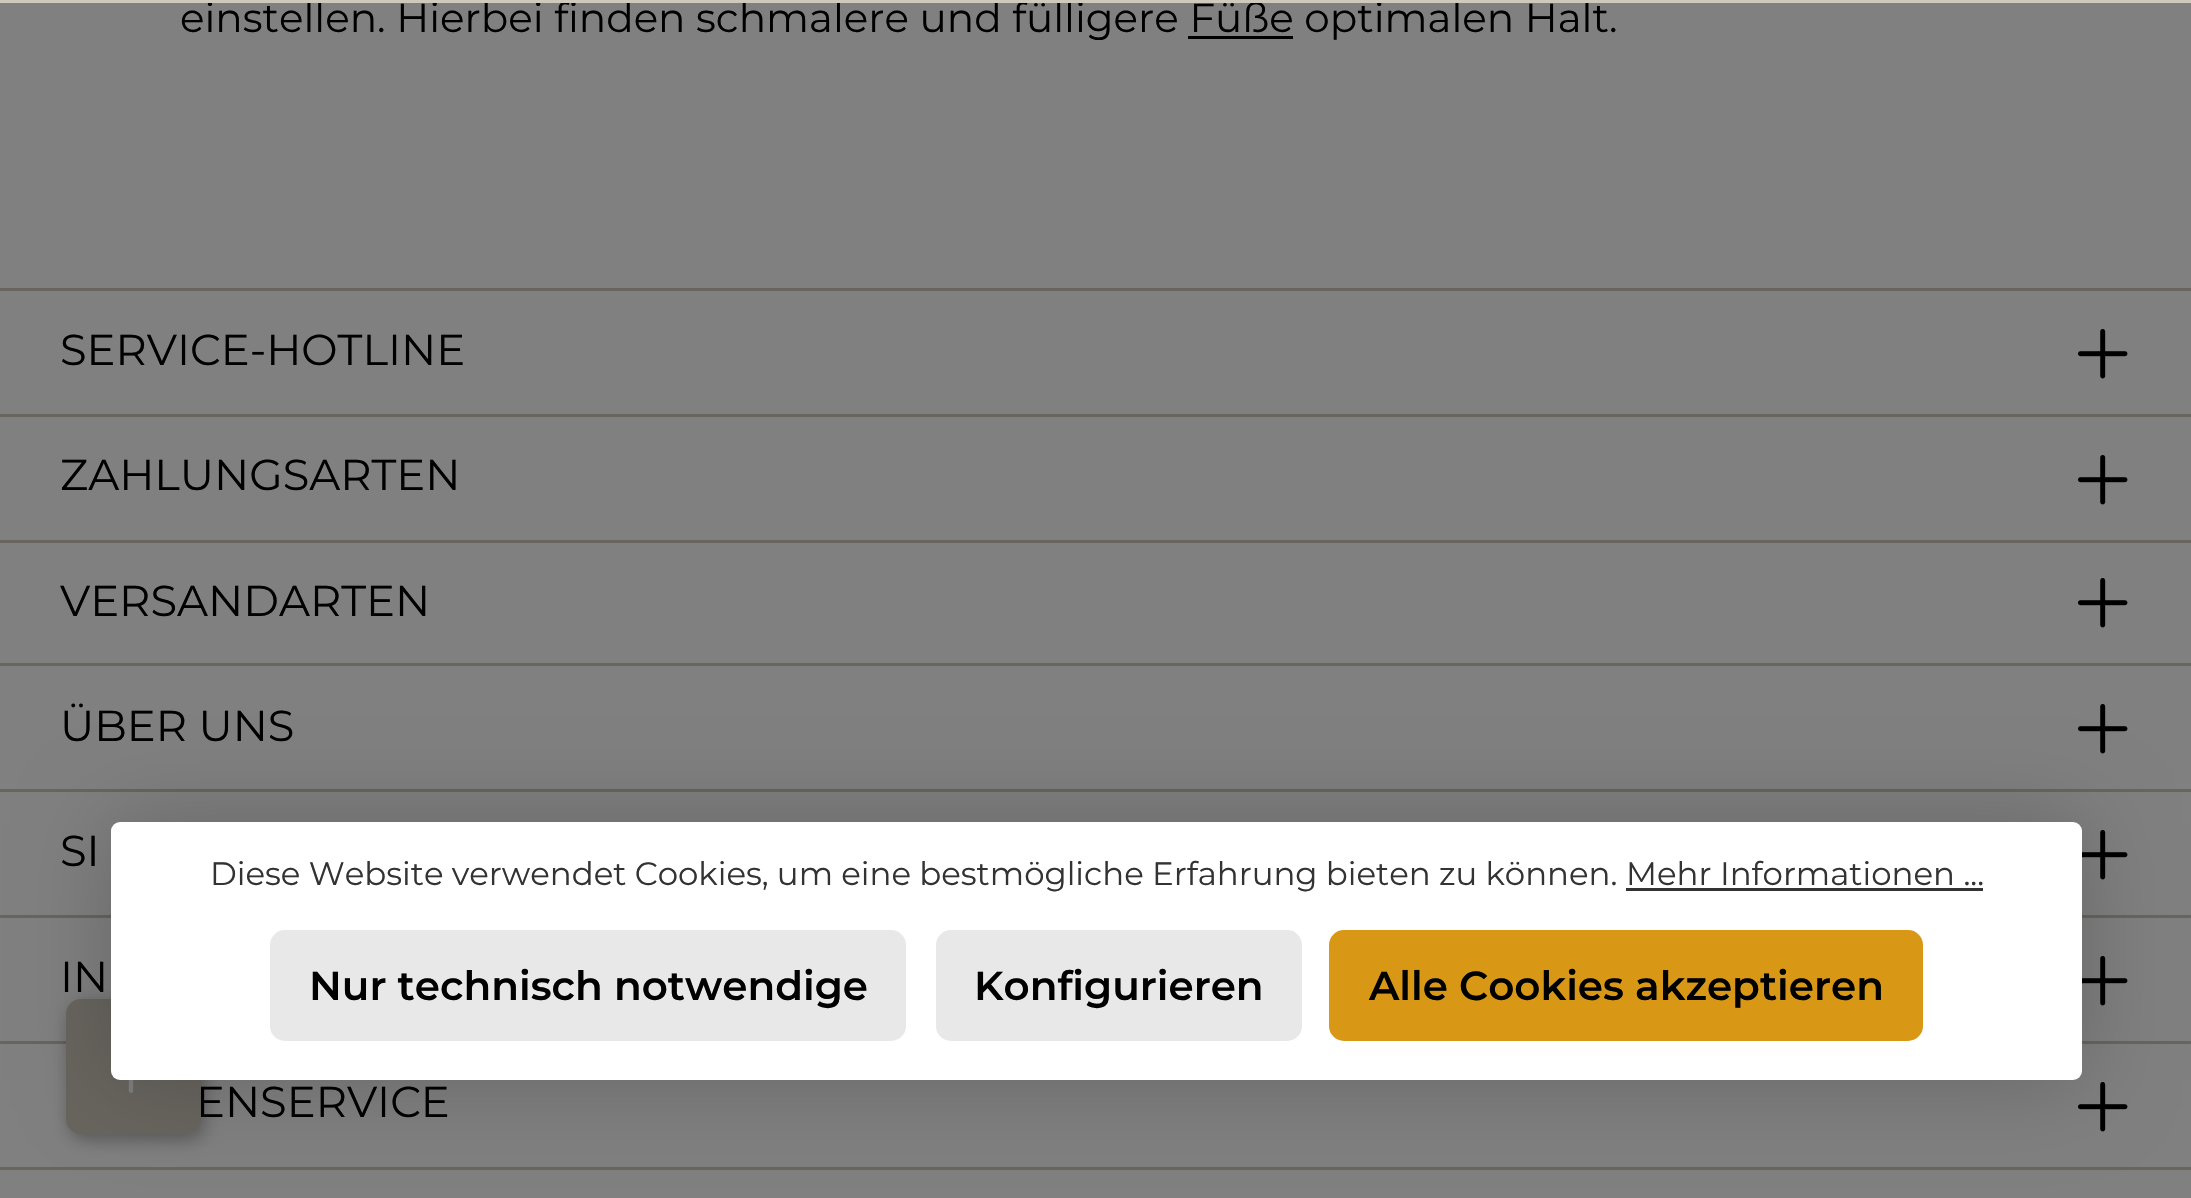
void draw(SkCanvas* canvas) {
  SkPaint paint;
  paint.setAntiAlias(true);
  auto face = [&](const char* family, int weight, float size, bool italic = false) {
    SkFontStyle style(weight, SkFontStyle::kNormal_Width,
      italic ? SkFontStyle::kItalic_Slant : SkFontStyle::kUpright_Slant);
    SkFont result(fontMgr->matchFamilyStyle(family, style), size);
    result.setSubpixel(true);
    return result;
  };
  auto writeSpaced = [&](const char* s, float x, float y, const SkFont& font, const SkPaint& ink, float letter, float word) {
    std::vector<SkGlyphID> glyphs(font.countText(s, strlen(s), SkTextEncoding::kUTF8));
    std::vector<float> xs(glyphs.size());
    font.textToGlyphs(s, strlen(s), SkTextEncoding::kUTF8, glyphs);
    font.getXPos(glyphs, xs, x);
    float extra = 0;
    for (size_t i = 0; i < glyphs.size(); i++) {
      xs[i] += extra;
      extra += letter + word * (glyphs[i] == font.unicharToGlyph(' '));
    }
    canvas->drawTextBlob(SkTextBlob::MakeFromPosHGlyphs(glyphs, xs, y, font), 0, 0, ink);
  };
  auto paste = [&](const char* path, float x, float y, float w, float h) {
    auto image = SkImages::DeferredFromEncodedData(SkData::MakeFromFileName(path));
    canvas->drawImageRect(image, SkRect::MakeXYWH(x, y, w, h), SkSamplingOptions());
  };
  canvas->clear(0xff808080);
  {
    const struct { float x, y, w, h; SkColor color; } items[] = {
      {1188, 36, 105, 3, 0xff000000},
      {0, 288, 2191, 3, 0xff68655f},
      {0, 414, 2191, 3, 0xff68655f},
    };
    for (auto [x, y, w, h, color] : items) {
      paint.setColor(color);
      canvas->drawRect(SkRect::MakeXYWH(x, y, w, h), paint);
    }
  }
  paste("img/1.png", 2078, 329, 50, 50);
  canvas->drawRect(SkRect::MakeXYWH(0, 540, 2191, 3), paint);
  paste("img/1.png", 2078, 455, 50, 50);
  canvas->drawRect(SkRect::MakeXYWH(0, 663, 2191, 3), paint);
  paste("img/1.png", 2078, 578, 50, 50);
  canvas->drawRect(SkRect::MakeXYWH(0, 789, 2191, 3), paint);
  paste("img/1.png", 2078, 704, 50, 50);
  canvas->drawRect(SkRect::MakeXYWH(0, 915, 2191, 3), paint);
  paste("img/2.png", 2082, 830, 46, 50);
  canvas->drawRect(SkRect::MakeXYWH(0, 1041, 2191, 3), paint);
  paste("img/2.png", 2082, 956, 46, 50);
  canvas->drawRect(SkRect::MakeXYWH(0, 1167, 2191, 3), paint);
  paste("img/1.png", 2078, 1082, 50, 50);
  paint.setColor(0x4d000000);
  paint.setMaskFilter(SkMaskFilter::MakeBlur(kNormal_SkBlurStyle, 9));
  canvas->drawRoundRect(SkRect::MakeXYWH(69, 1005, 135, 135), 15, 15, paint);
  paint.setMaskFilter(nullptr);
  auto f0 = face("Montserrat", 400, 40.5f);
  paint.setColor(0xff000000);
  canvas->drawString("einstellen. Hierbei finden schmalere und fülligere Füße optimalen Halt.", 180, 32, f0, paint);
  auto f1 = face("Montserrat", 400, 43.25f);
  {
    const struct { const char* s; float x, y; } items[] = {
      {"SERVICE-HOTLINE", 60, 365},
      {"ZAHLUNGSARTEN", 60, 490},
      {"VERSANDARTEN", 60, 616},
      {"ÜBER UNS", 60, 741},
      {"SI", 60, 866},
      {"IN", 60, 992},
      {"ENSERVICE", 196, 1117},
    };
    for (auto [s, x, y] : items) {
      canvas->drawString(s, x, y, f1, paint);
    }
  }
  paint.setColor(0xffcfc9bd);
  canvas->drawRect(SkRect::MakeXYWH(0, 0, 2191, 3), paint);
  paint.setColor(0xff68655f);
  canvas->drawRoundRect(SkRect::MakeXYWH(67.5f, 1000.5f, 132, 132), 13.5f, 13.5f, paint);
  paint.setStroke(true);
  paint.setStrokeWidth(3);
  canvas->drawRoundRect(SkRect::MakeXYWH(67.5f, 1000.5f, 132, 132), 13.5f, 13.5f, paint);
  paste("img/3.png", 128, 1080, 6, 13);
  paint.setStroke(false);
  paint.setColor(0x33000000);
  paint.setMaskFilter(SkMaskFilter::MakeBlur(kNormal_SkBlurStyle, 45));
  canvas->drawRoundRect(SkRect::MakeXYWH(111, 822, 1971, 258), 9, 9, paint);
  paint.setMaskFilter(nullptr);
  paint.setColor(0xffffffff);
  canvas->drawRoundRect(SkRect::MakeXYWH(111, 822, 1971, 258), 9, 9, paint);
  paint.setColor(0xffd89816);
  canvas->drawRoundRect(SkRect::MakeXYWH(1330.5f, 931.5f, 591, 108), 13.5f, 13.5f, paint);
  paint.setStroke(true);
  canvas->drawRoundRect(SkRect::MakeXYWH(1330.5f, 931.5f, 591, 108), 13.5f, 13.5f, paint);
  auto f2 = face("Montserrat", 600, 40.5f);
  paint.setStroke(false);
  paint.setColor(0xff000000);
  canvas->drawString("Alle Cookies akzeptieren", 1369, 1000, f2, paint);
  paint.setColor(0xffe8e8e9);
  canvas->drawRoundRect(SkRect::MakeXYWH(937.5f, 931.5f, 363, 108), 13.5f, 13.5f, paint);
  paint.setStroke(true);
  canvas->drawRoundRect(SkRect::MakeXYWH(937.5f, 931.5f, 363, 108), 13.5f, 13.5f, paint);
  paint.setStroke(false);
  paint.setColor(0xff000000);
  canvas->drawString("Konfigurieren", 974, 1000, f2, paint);
  paint.setColor(0xffe8e8e9);
  canvas->drawRoundRect(SkRect::MakeXYWH(271.5f, 931.5f, 633, 108), 13.5f, 13.5f, paint);
  paint.setStroke(true);
  canvas->drawRoundRect(SkRect::MakeXYWH(271.5f, 931.5f, 633, 108), 13.5f, 13.5f, paint);
  paint.setStroke(false);
  paint.setColor(0xff000000);
  canvas->drawString("Nur technisch notwendige", 309, 1000, f2, paint);
  auto f3 = face("Montserrat", 400, 32.4f);
  paint.setColor(0xff333333);
  canvas->drawString("Mehr Informationen ...", 1626, 885, f3, paint);
  canvas->drawRect(SkRect::MakeXYWH(1626, 888, 357, 3), paint);
  writeSpaced("Diese Website verwendet Cookies, um eine bestmögliche Erfahrung bieten zu können.", 210, 885, f3, paint, 0, -0.25f);
}
